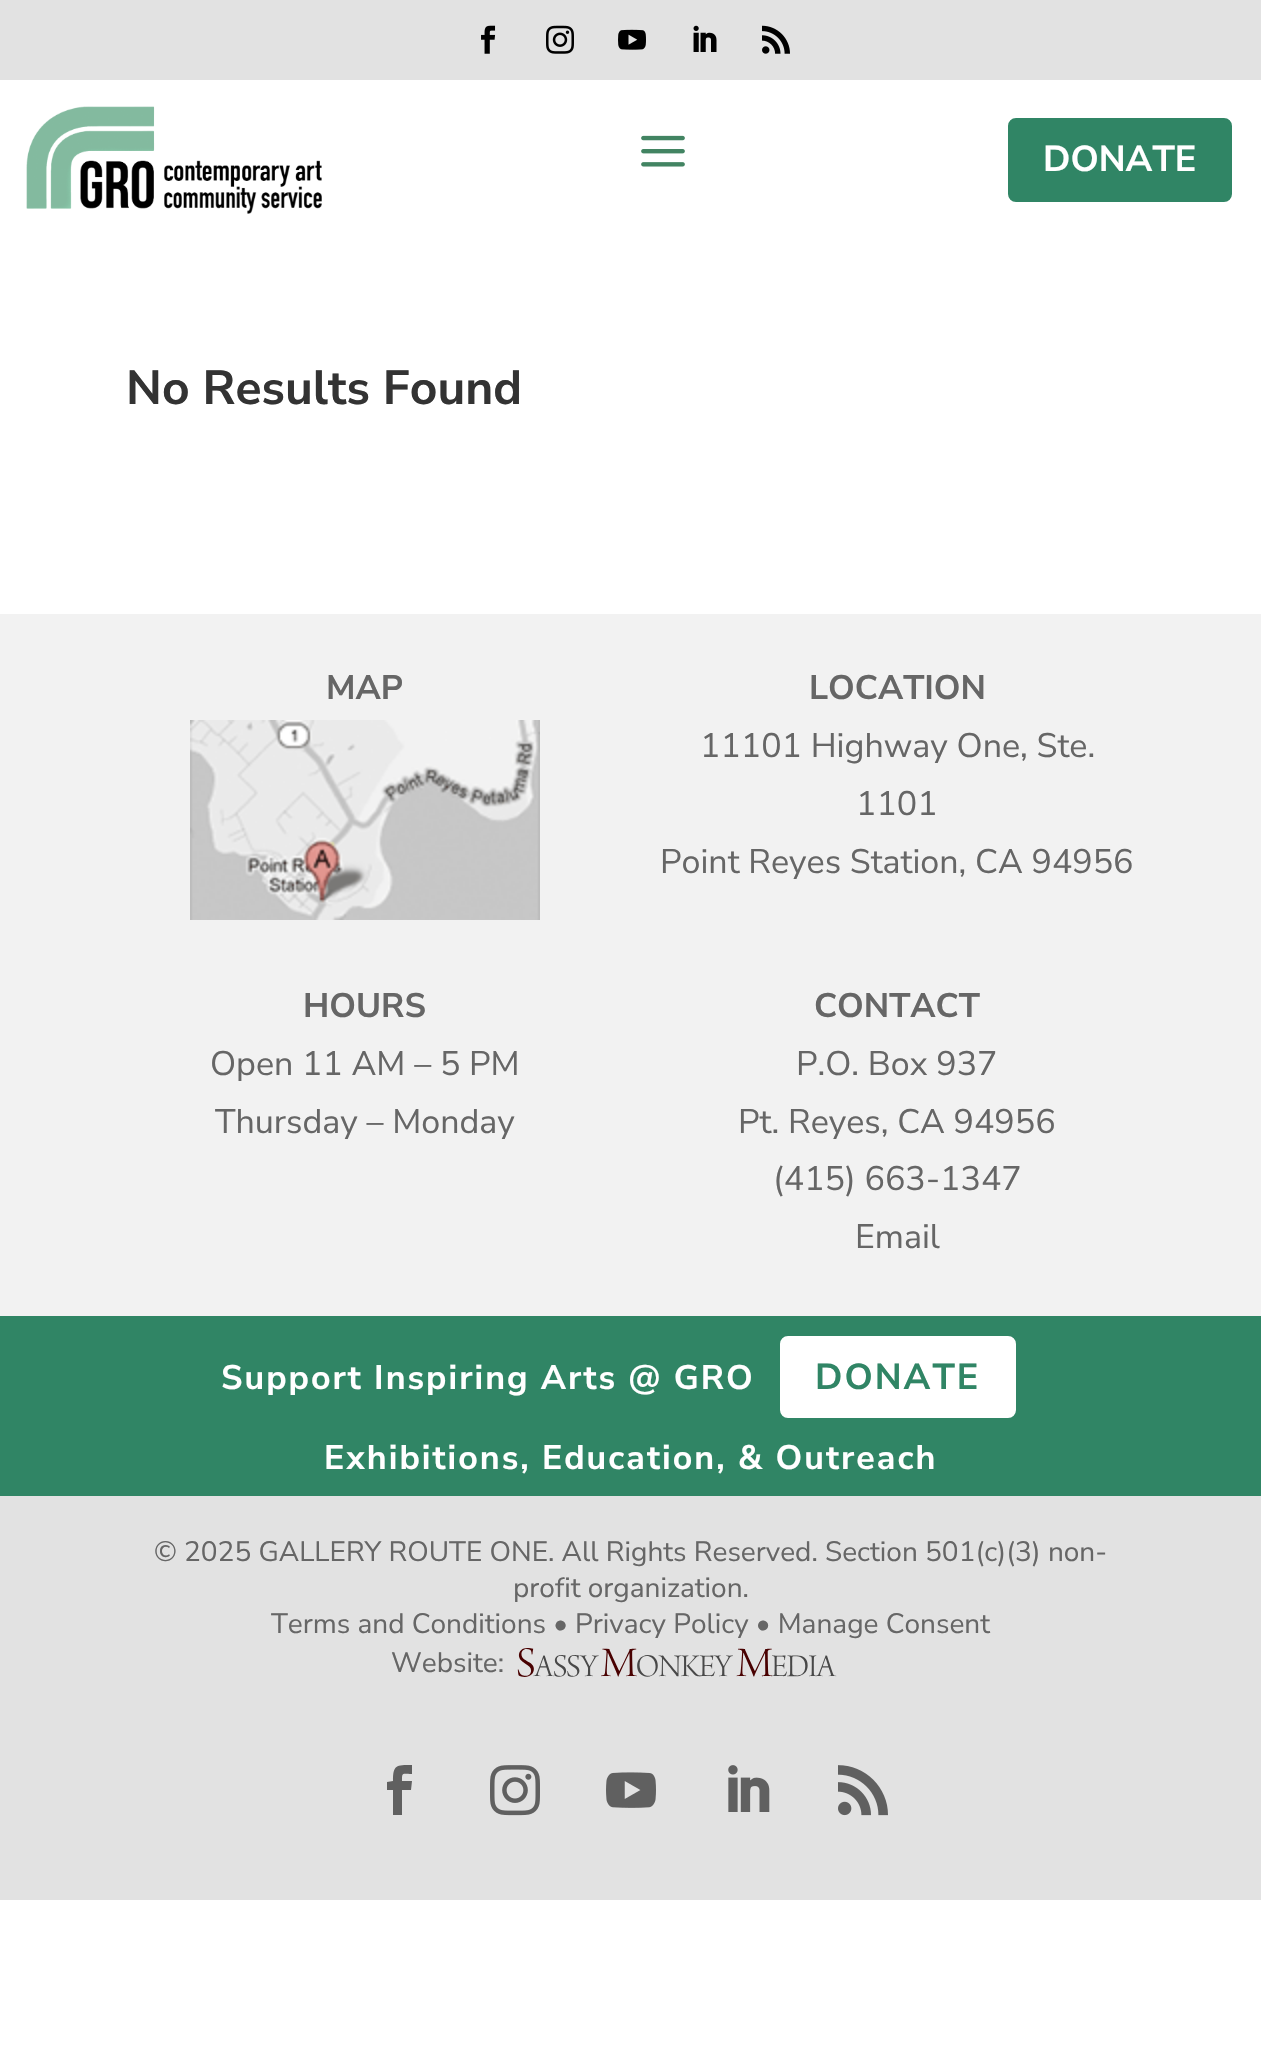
void draw(SkCanvas* canvas) {
  SkPaint paint;
  paint.setAntiAlias(true);
  auto face = [&](const char* family, int weight, float size, bool italic = false) {
    SkFontStyle style(weight, SkFontStyle::kNormal_Width,
      italic ? SkFontStyle::kItalic_Slant : SkFontStyle::kUpright_Slant);
    SkFont result(fontMgr->matchFamilyStyle(family, style), size);
    result.setSubpixel(true);
    return result;
  };
  auto writeSpaced = [&](const char* s, float x, float y, const SkFont& font, const SkPaint& ink, float letter, float word) {
    std::vector<SkGlyphID> glyphs(font.countText(s, strlen(s), SkTextEncoding::kUTF8));
    std::vector<float> xs(glyphs.size());
    font.textToGlyphs(s, strlen(s), SkTextEncoding::kUTF8, glyphs);
    font.getXPos(glyphs, xs, x);
    float extra = 0;
    for (size_t i = 0; i < glyphs.size(); i++) {
      xs[i] += extra;
      extra += letter + word * (glyphs[i] == font.unicharToGlyph(' '));
    }
    canvas->drawTextBlob(SkTextBlob::MakeFromPosHGlyphs(glyphs, xs, y, font), 0, 0, ink);
  };
  auto paste = [&](const char* path, float x, float y, float w, float h) {
    auto image = SkImages::DeferredFromEncodedData(SkData::MakeFromFileName(path));
    canvas->drawImageRect(image, SkRect::MakeXYWH(x, y, w, h), SkSamplingOptions());
  };
  auto shape = [&](const char* data, bool evenOdd = false) {
    SkPath result = *SkParsePath::FromSVGString(data);
    if (evenOdd) result.setFillType(SkPathFillType::kEvenOdd);
    return result;
  };
  canvas->clear(0xffffffff);
  paint.setColor(0xffe2e2e2);
  canvas->drawRect(SkRect::MakeXYWH(0, 0, 1261, 80), paint);
  paste("img/1.png", 481, 25, 15, 29);
  paste("img/2.png", 546, 25, 28, 29);
  paste("img/3.png", 618, 29, 28, 21);
  paste("img/4.png", 693, 25, 24, 27);
  paste("img/5.png", 762, 25, 28, 29);
  paste("img/6.png", 26, 106, 296, 108);
  paste("img/7.png", 641, 135, 44, 32);
  paint.setColor(0xff308565);
  canvas->drawRoundRect(SkRect::MakeXYWH(1006, 116, 228, 88), 10, 10, paint);
  paint.setStroke(true);
  paint.setStrokeWidth(4);
  paint.setColor(0xffffffff);
  canvas->drawRoundRect(SkRect::MakeXYWH(1006, 116, 228, 88), 10, 10, paint);
  paint.setStroke(false);
  paint.setColor(0xfff2f2f2);
  canvas->drawRect(SkRect::MakeXYWH(0, 614, 1261, 702), paint);
  paste("img/8.png", 190, 720, 350, 200);
  paint.setColor(0xff308565);
  canvas->drawRect(SkRect::MakeXYWH(0, 1316, 1261, 180), paint);
  paint.setColor(0xffffffff);
  canvas->drawRoundRect(SkRect::MakeXYWH(778, 1334, 240, 86), 10, 10, paint);
  paint.setStroke(true);
  paint.setColor(0xff308565);
  canvas->drawRoundRect(SkRect::MakeXYWH(778, 1334, 240, 86), 10, 10, paint);
  paint.setStroke(false);
  paint.setColor(0xffe2e2e2);
  canvas->drawRect(SkRect::MakeXYWH(0, 1496, 1261, 404), paint);
  paste("img/9.png", 517, 1648, 320, 29);
  paint.setColor(0xff606060);
  canvas->drawPath(shape("M393 1815H402V1790H411L412 1781H402C402 1772 402 1774 412 1774V1765C396 1765 393 1765 393 1781L387 1782V1790H393Z"), paint);
  paste("img/10.png", 490, 1765, 50, 51);
  paste("img/11.png", 606, 1772, 50, 36);
  paste("img/12.png", 728, 1765, 42, 47);
  paste("img/13.png", 838, 1765, 50, 51);
  auto f0 = face("Nunito Sans", 200, 36);
  paint.setColor(0xffffffff);
  canvas->drawString("DONATE", 1043, 171, f0, paint);
  auto f1 = face("Nunito Sans", 200, 48);
  paint.setColor(0xff333333);
  canvas->drawString("No Results Found", 126, 404, f1, paint);
  auto f2 = face("Nunito Sans", 200, 34);
  paint.setColor(0xff666666);
  canvas->drawString("MAP", 326, 699, f2, paint);
  canvas->drawString("LOCATION", 809, 699, f2, paint);
  auto f3 = face("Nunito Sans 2", 200, 34);
  {
    const struct { const char* s; float x, y; } items[] = {
      {"11101 Highway One, Ste.", 700, 757},
      {"1101", 856, 815},
      {"Point Reyes Station, CA 94956", 660, 873},
    };
    for (auto [s, x, y] : items) {
      canvas->drawString(s, x, y, f3, paint);
    }
  }
  canvas->drawString("HOURS", 303, 1017, f2, paint);
  canvas->drawString("Open 11 AM – 5 PM", 210, 1075, f3, paint);
  canvas->drawString("Thursday – Monday", 215, 1133, f3, paint);
  canvas->drawString("CONTACT", 814, 1017, f2, paint);
  {
    const struct { const char* s; float x, y; } items[] = {
      {"P.O. Box 937", 796, 1075},
      {"Pt. Reyes, CA 94956", 738, 1133},
      {"(415) 663-1347", 773, 1190},
      {"Email", 855, 1248},
    };
    for (auto [s, x, y] : items) {
      canvas->drawString(s, x, y, f3, paint);
    }
  }
  paint.setColor(0xffffffff);
  writeSpaced("Support Inspiring Arts @ GRO", 221, 1389, f2, paint, 2, 0);
  paint.setColor(0xff308565);
  writeSpaced("DONATE", 815, 1389, f0, paint, 2, 0);
  paint.setColor(0xffffffff);
  writeSpaced("Exhibitions, Education, & Outreach", 324, 1469, f2, paint, 2, 0);
  auto f4 = face("Nunito Sans 2", 200, 28);
  paint.setColor(0xff666666);
  {
    const struct { const char* s; float x, y; } items[] = {
      {"© 2025 GALLERY ROUTE ONE. All Rights Reserved. Section 501(c)(3) non-", 154, 1561},
      {"profit organization.", 513, 1597},
      {"Terms and Conditions • Privacy Policy • Manage Consent", 271, 1633},
      {"Website:", 391, 1672},
    };
    for (auto [s, x, y] : items) {
      canvas->drawString(s, x, y, f4, paint);
    }
  }
}
